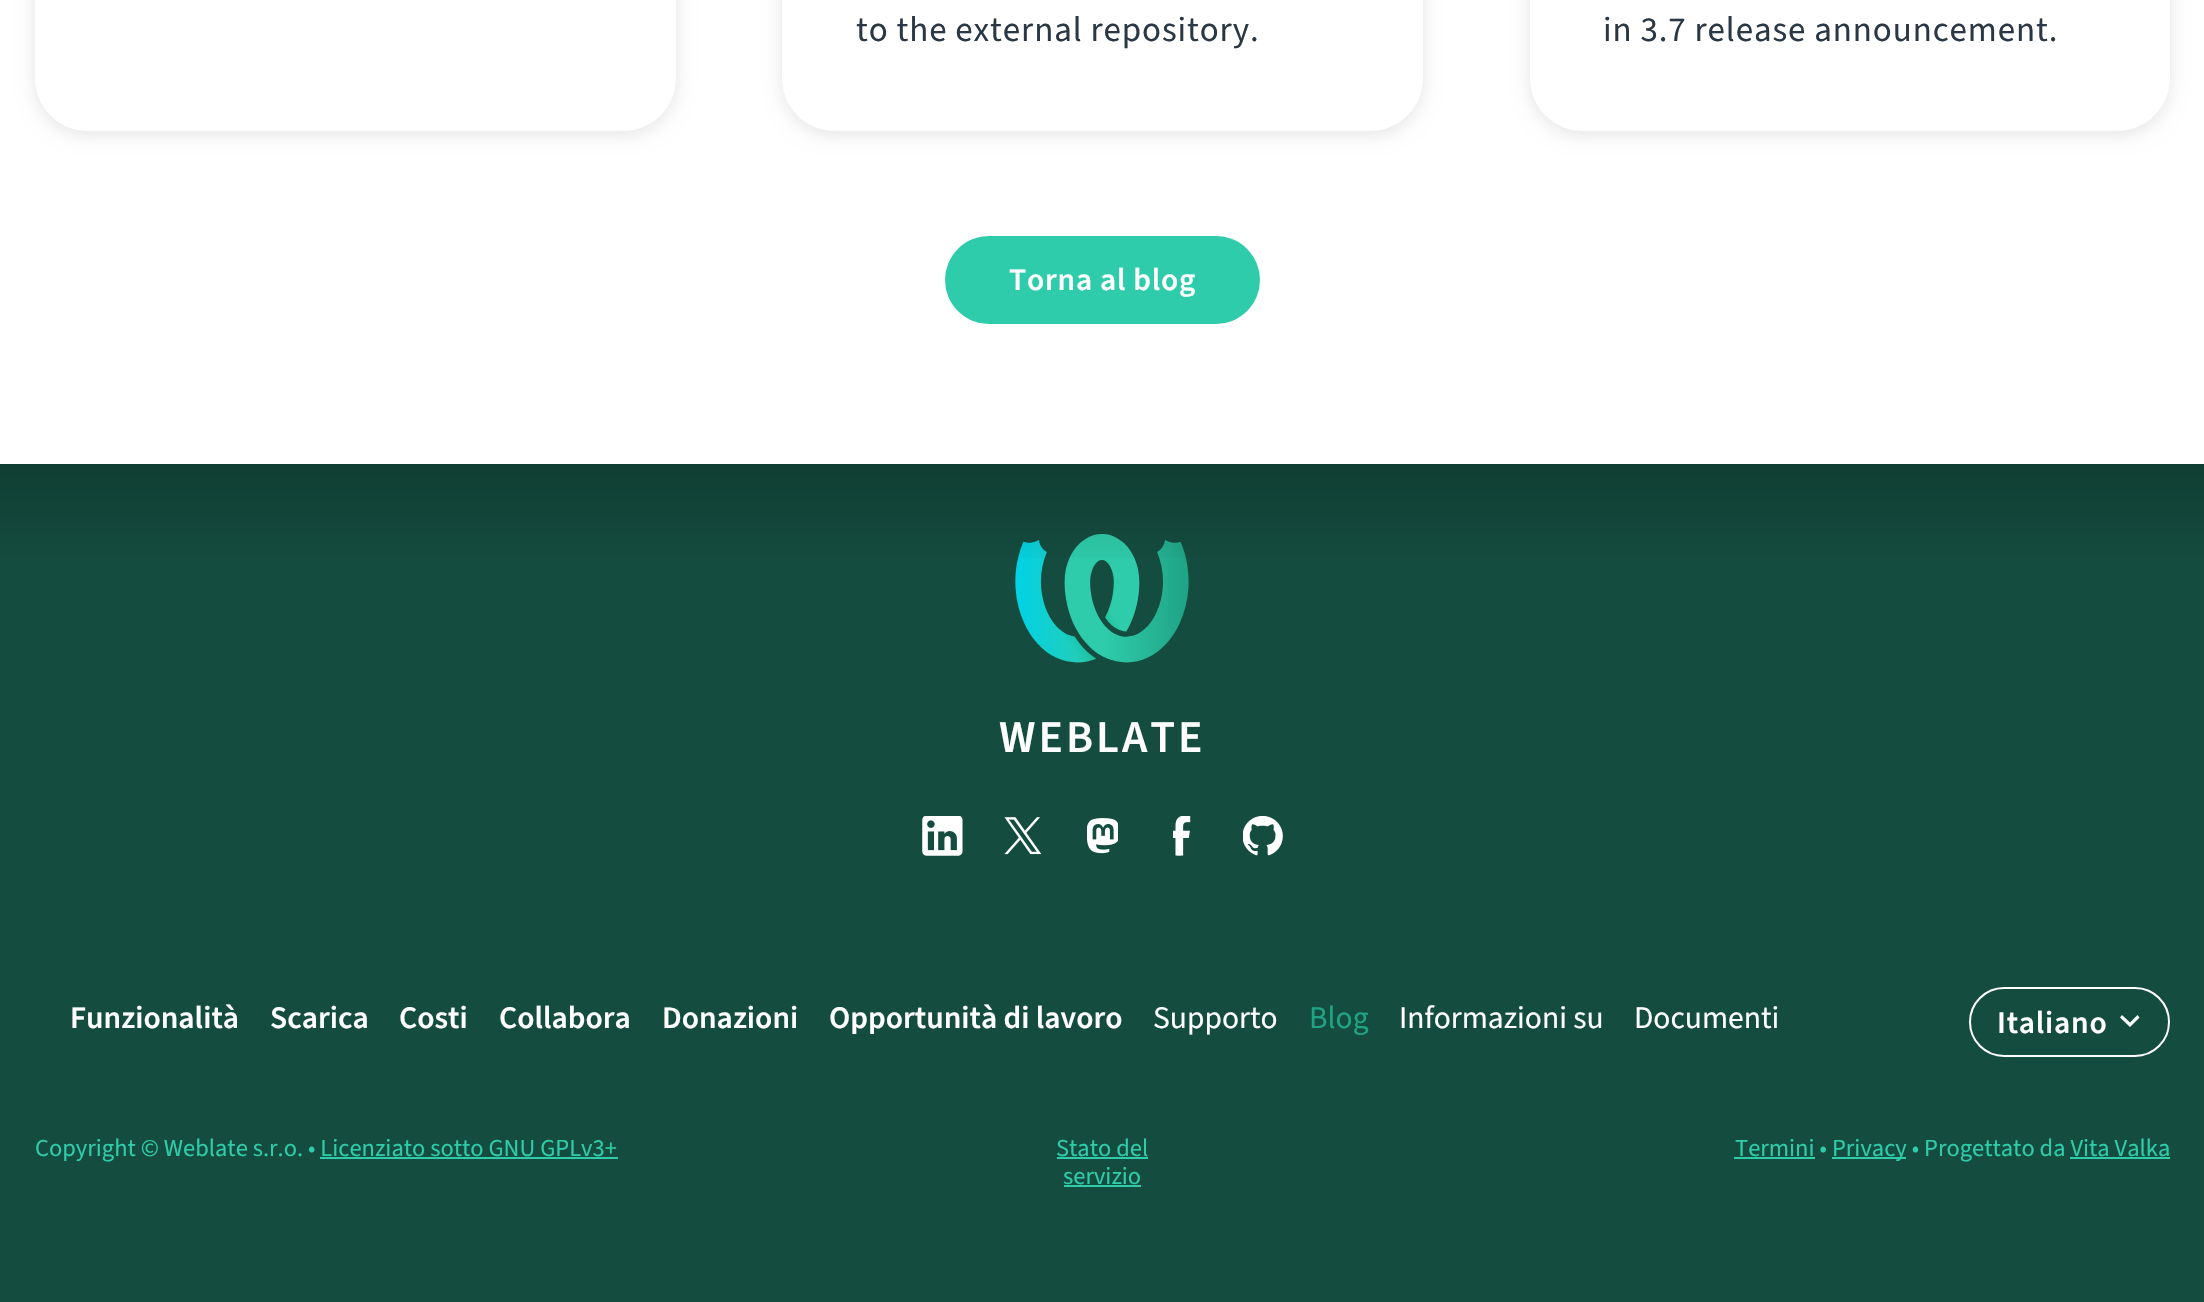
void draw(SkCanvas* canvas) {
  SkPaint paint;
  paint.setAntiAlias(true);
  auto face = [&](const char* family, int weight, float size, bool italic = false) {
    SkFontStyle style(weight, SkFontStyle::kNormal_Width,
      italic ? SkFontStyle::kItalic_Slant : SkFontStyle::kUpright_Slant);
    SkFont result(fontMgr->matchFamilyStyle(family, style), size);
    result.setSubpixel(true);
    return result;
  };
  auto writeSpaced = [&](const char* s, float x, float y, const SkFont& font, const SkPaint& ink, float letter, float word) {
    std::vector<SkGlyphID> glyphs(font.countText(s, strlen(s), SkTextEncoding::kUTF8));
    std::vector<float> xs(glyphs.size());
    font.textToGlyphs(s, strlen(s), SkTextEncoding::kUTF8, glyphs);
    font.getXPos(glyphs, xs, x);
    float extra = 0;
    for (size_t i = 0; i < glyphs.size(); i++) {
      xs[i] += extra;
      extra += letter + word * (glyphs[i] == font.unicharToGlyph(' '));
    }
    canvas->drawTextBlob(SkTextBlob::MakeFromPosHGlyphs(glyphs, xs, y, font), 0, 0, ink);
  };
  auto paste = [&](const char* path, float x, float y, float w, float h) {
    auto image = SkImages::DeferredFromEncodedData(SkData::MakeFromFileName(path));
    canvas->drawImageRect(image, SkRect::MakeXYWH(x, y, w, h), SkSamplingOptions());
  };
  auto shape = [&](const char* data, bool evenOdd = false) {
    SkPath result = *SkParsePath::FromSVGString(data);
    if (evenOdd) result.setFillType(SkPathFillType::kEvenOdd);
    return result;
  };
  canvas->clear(0xffffffff);
  canvas->save();
  canvas->clipPath(shape("M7 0H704V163H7ZM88-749H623C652.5-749 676-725.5 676-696V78C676 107.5 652.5 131 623 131H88C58.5 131 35 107.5 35 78V-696C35-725.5 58.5-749 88-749Z", true), true);
  paint.setColor(0x1a000000);
  paint.setMaskFilter(SkMaskFilter::MakeBlur(kNormal_SkBlurStyle, 9));
  canvas->drawRoundRect(SkRect::MakeXYWH(35, -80, 641, 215), 53, 53, paint);
  paint.setMaskFilter(nullptr);
  canvas->restore();
  canvas->save();
  canvas->clipPath(shape("M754 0H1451V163H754ZM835-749H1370C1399.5-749 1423-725.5 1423-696V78C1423 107.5 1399.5 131 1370 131H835C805.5 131 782 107.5 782 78V-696C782-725.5 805.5-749 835-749Z", true), true);
  paint.setMaskFilter(SkMaskFilter::MakeBlur(kNormal_SkBlurStyle, 9));
  canvas->drawRoundRect(SkRect::MakeXYWH(782, -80, 641, 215), 53, 53, paint);
  paint.setMaskFilter(nullptr);
  canvas->restore();
  canvas->save();
  canvas->clipPath(shape("M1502 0H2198V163H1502ZM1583-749H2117C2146.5-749 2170-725.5 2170-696V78C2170 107.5 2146.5 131 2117 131H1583C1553.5 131 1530 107.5 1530 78V-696C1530-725.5 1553.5-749 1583-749Z", true), true);
  paint.setMaskFilter(SkMaskFilter::MakeBlur(kNormal_SkBlurStyle, 9));
  canvas->drawRoundRect(SkRect::MakeXYWH(1530, -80, 640, 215), 53, 53, paint);
  paint.setMaskFilter(nullptr);
  canvas->restore();
  paint.setColor(0xff2eccaa);
  canvas->drawRoundRect(SkRect::MakeXYWH(945, 236, 315, 88), 44, 44, paint);
  paint.setColor(0xff144d3f);
  canvas->drawRect(SkRect::MakeXYWH(0, 464, 2204, 838), paint);
  paste("img/1.png", 1015, 534, 174, 129);
  {
    const SkColor colors[] = {0x33000000, 0x00000000};
    const float stops[] = {0, 1};
    const SkPoint ends[] = {{1103, 464}, {1103, 569}};
    paint.setShader(SkGradientShader::MakeLinear(ends, colors, stops, 2, SkTileMode::kClamp));
    paint.setAlpha(255);
  }
  canvas->drawRect(SkRect::MakeXYWH(0, 464, 2204, 94), paint);
  paste("img/2.png", 922, 816, 41, 40);
  paste("img/3.png", 1004, 817, 38, 38);
  paste("img/4.png", 1087, 818, 31, 36);
  paste("img/5.png", 1173, 816, 18, 40);
  paste("img/6.png", 1243, 816, 40, 40);
  paint.setStroke(true);
  paint.setStrokeWidth(2);
  paint.setShader(nullptr);
  paint.setColor(0xffffffff);
  canvas->drawRoundRect(SkRect::MakeXYWH(1970, 988, 199, 68), 34, 34, paint);
  paint.setStroke(false);
  canvas->drawPath(shape("M2122 1015L2130 1022.5L2137.5 1015L2139.5 1017.5L2130 1027L2120 1017.5Z"), paint);
  {
    const struct { float x, y, w, h; SkColor color; } items[] = {
      {320, 1157, 298, 2, 0xff2eccaa},
      {1057, 1157, 91, 2, 0xff2eccaa},
      {1064, 1185, 77, 2, 0xff2eccaa},
      {1734, 1157, 81, 2, 0xff2eccaa},
      {1832, 1157, 74, 2, 0xff2eccaa},
      {2070, 1157, 100, 2, 0xff2eccaa},
    };
    for (auto [x, y, w, h, color] : items) {
      paint.setColor(color);
      canvas->drawRect(SkRect::MakeXYWH(x, y, w, h), paint);
    }
  }
  auto f0 = face("Source Sans 3", 400, 35);
  paint.setColor(0xff2a3744);
  writeSpaced("to the external repository.", 856, 41, f0, paint, 0.9f, 0);
  writeSpaced("in 3.7 release announcement.", 1603, 41, f0, paint, 0.9f, 0);
  auto f1 = face("Source Sans 3", 600, 31.5f);
  paint.setColor(0xffffffff);
  writeSpaced("Torna al blog", 1009, 290, f1, paint, 0.75f, 0);
  auto f2 = face("Source Sans 3", 600, 45.5f);
  writeSpaced("WEBLATE", 999, 752, f2, paint, 3, 0);
  {
    const struct { const char* s; float x, y; } items[] = {
      {"Funzionalità", 70, 1028},
      {"Scarica", 270, 1028},
      {"Costi", 399, 1028},
      {"Collabora", 499, 1028},
      {"Donazioni", 662, 1028},
      {"Opportunità di lavoro", 829, 1028},
    };
    for (auto [s, x, y] : items) {
      canvas->drawString(s, x, y, f1, paint);
    }
  }
  auto f3 = face("Source Sans 3", 400, 31.5f);
  canvas->drawString("Supporto", 1153, 1028, f3, paint);
  paint.setColor(0xff1fa385);
  canvas->drawString("Blog", 1309, 1028, f3, paint);
  paint.setColor(0xffffffff);
  canvas->drawString("Informazioni su", 1399, 1028, f3, paint);
  canvas->drawString("Documenti", 1634, 1028, f3, paint);
  writeSpaced("Italiano", 1997, 1033, f1, paint, 0.75f, 0);
  auto f4 = face("Source Sans 3", 400, 24.5f);
  paint.setColor(0xff2eccaa);
  {
    const struct { const char* s; float x, y; } items[] = {
      {"Copyright © Weblate s.r.o. • Licenziato sotto GNU GPLv3+", 35, 1156},
      {"Stato del", 1056, 1156},
      {"servizio", 1063, 1184},
      {"Termini •", 1735, 1156},
      {"Privacy • Progettato da Vita Valka", 1832, 1156},
    };
    for (auto [s, x, y] : items) {
      canvas->drawString(s, x, y, f4, paint);
    }
  }
}
